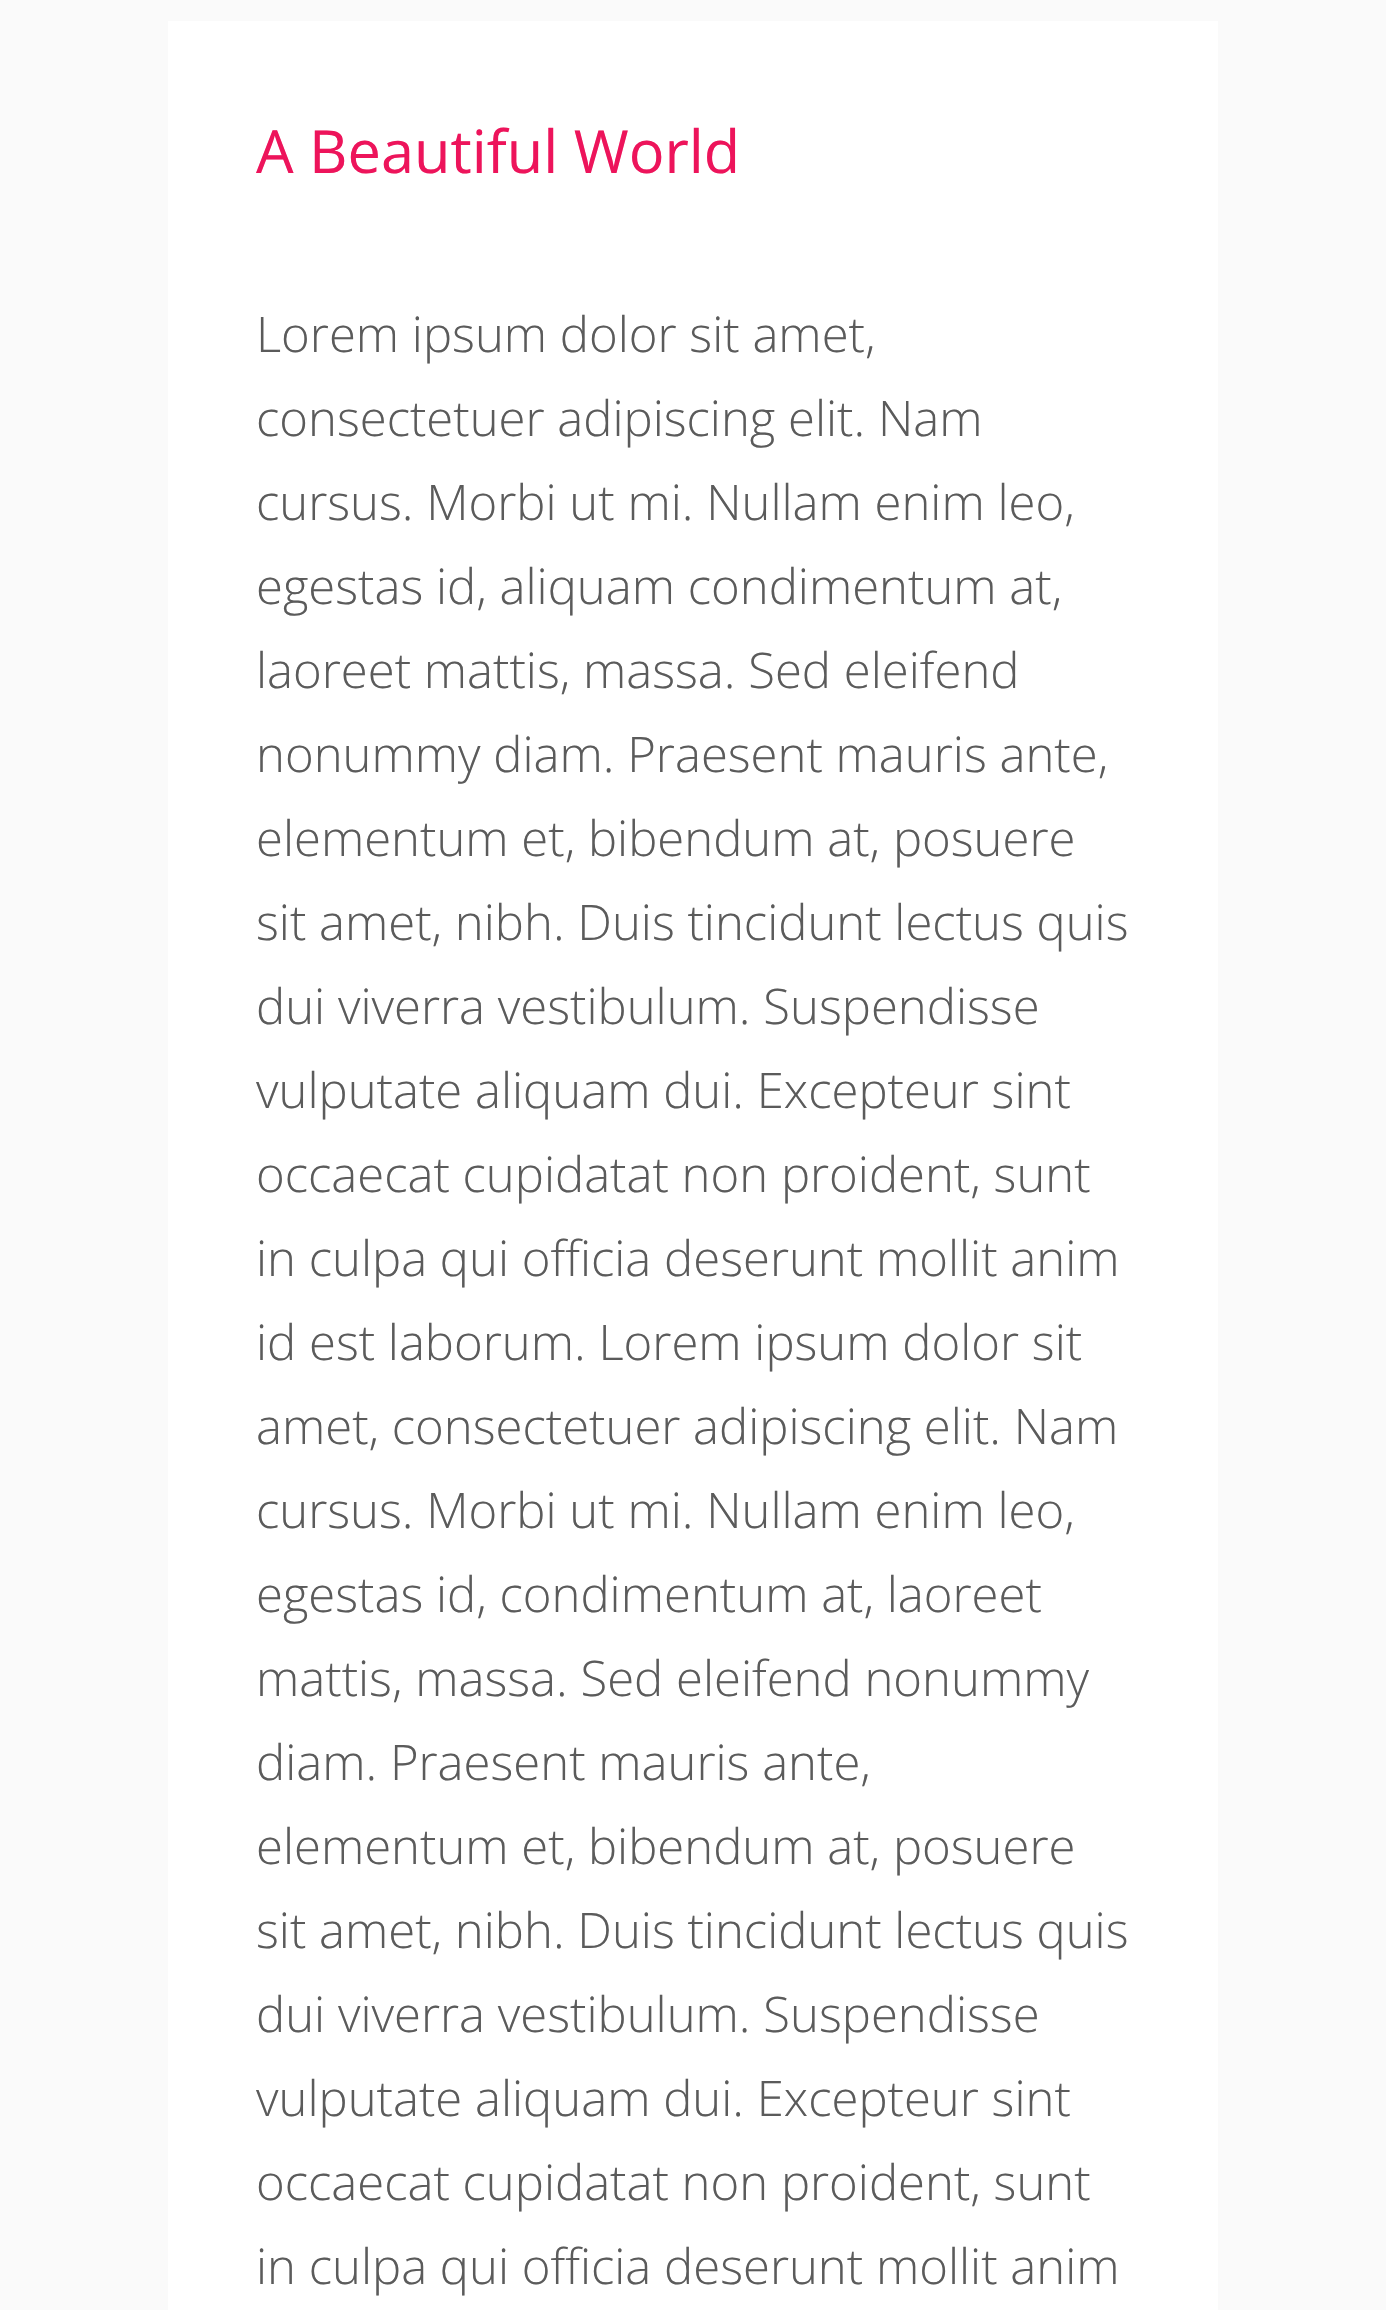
void draw(SkCanvas* canvas) {
  SkPaint paint;
  paint.setAntiAlias(true);
  auto face = [&](const char* family, int weight, float size, bool italic = false) {
    SkFontStyle style(weight, SkFontStyle::kNormal_Width,
      italic ? SkFontStyle::kItalic_Slant : SkFontStyle::kUpright_Slant);
    SkFont result(fontMgr->matchFamilyStyle(family, style), size);
    result.setSubpixel(true);
    return result;
  };
  canvas->clear(0xfffafafa);
  paint.setColor(0xffffffff);
  canvas->drawRect(SkRect::MakeXYWH(168, 21, 1050, 2289), paint);
  auto f0 = face("Open Sans", 400, 59.5f);
  paint.setColor(0xffed145b);
  canvas->drawString("A Beautiful World", 256, 173, f0, paint);
  auto f1 = face("Open Sans", 300, 49);
  paint.setColor(0xff5b5b5b);
  {
    const struct { const char* s; float x, y; } items[] = {
      {"Lorem ipsum dolor sit amet,", 256, 352},
      {"consectetuer adipiscing elit. Nam", 256, 436},
      {"cursus. Morbi ut mi. Nullam enim leo,", 256, 520},
      {"egestas id, aliquam condimentum at,", 256, 604},
      {"laoreet mattis, massa. Sed eleifend", 256, 688},
      {"nonummy diam. Praesent mauris ante,", 256, 772},
      {"elementum et, bibendum at, posuere", 256, 856},
      {"sit amet, nibh. Duis tincidunt lectus quis", 256, 940},
      {"dui viverra vestibulum. Suspendisse", 256, 1024},
      {"vulputate aliquam dui. Excepteur sint", 256, 1108},
      {"occaecat cupidatat non proident, sunt", 256, 1192},
      {"in culpa qui officia deserunt mollit anim", 256, 1276},
      {"id est laborum. Lorem ipsum dolor sit", 256, 1360},
      {"amet, consectetuer adipiscing elit. Nam", 256, 1444},
      {"cursus. Morbi ut mi. Nullam enim leo,", 256, 1528},
      {"egestas id, condimentum at, laoreet", 256, 1612},
      {"mattis, massa. Sed eleifend nonummy", 256, 1696},
      {"diam. Praesent mauris ante,", 256, 1780},
      {"elementum et, bibendum at, posuere", 256, 1864},
      {"sit amet, nibh. Duis tincidunt lectus quis", 256, 1948},
      {"dui viverra vestibulum. Suspendisse", 256, 2032},
      {"vulputate aliquam dui. Excepteur sint", 256, 2116},
      {"occaecat cupidatat non proident, sunt", 256, 2200},
      {"in culpa qui officia deserunt mollit anim", 256, 2284},
    };
    for (auto [s, x, y] : items) {
      canvas->drawString(s, x, y, f1, paint);
    }
  }
}
